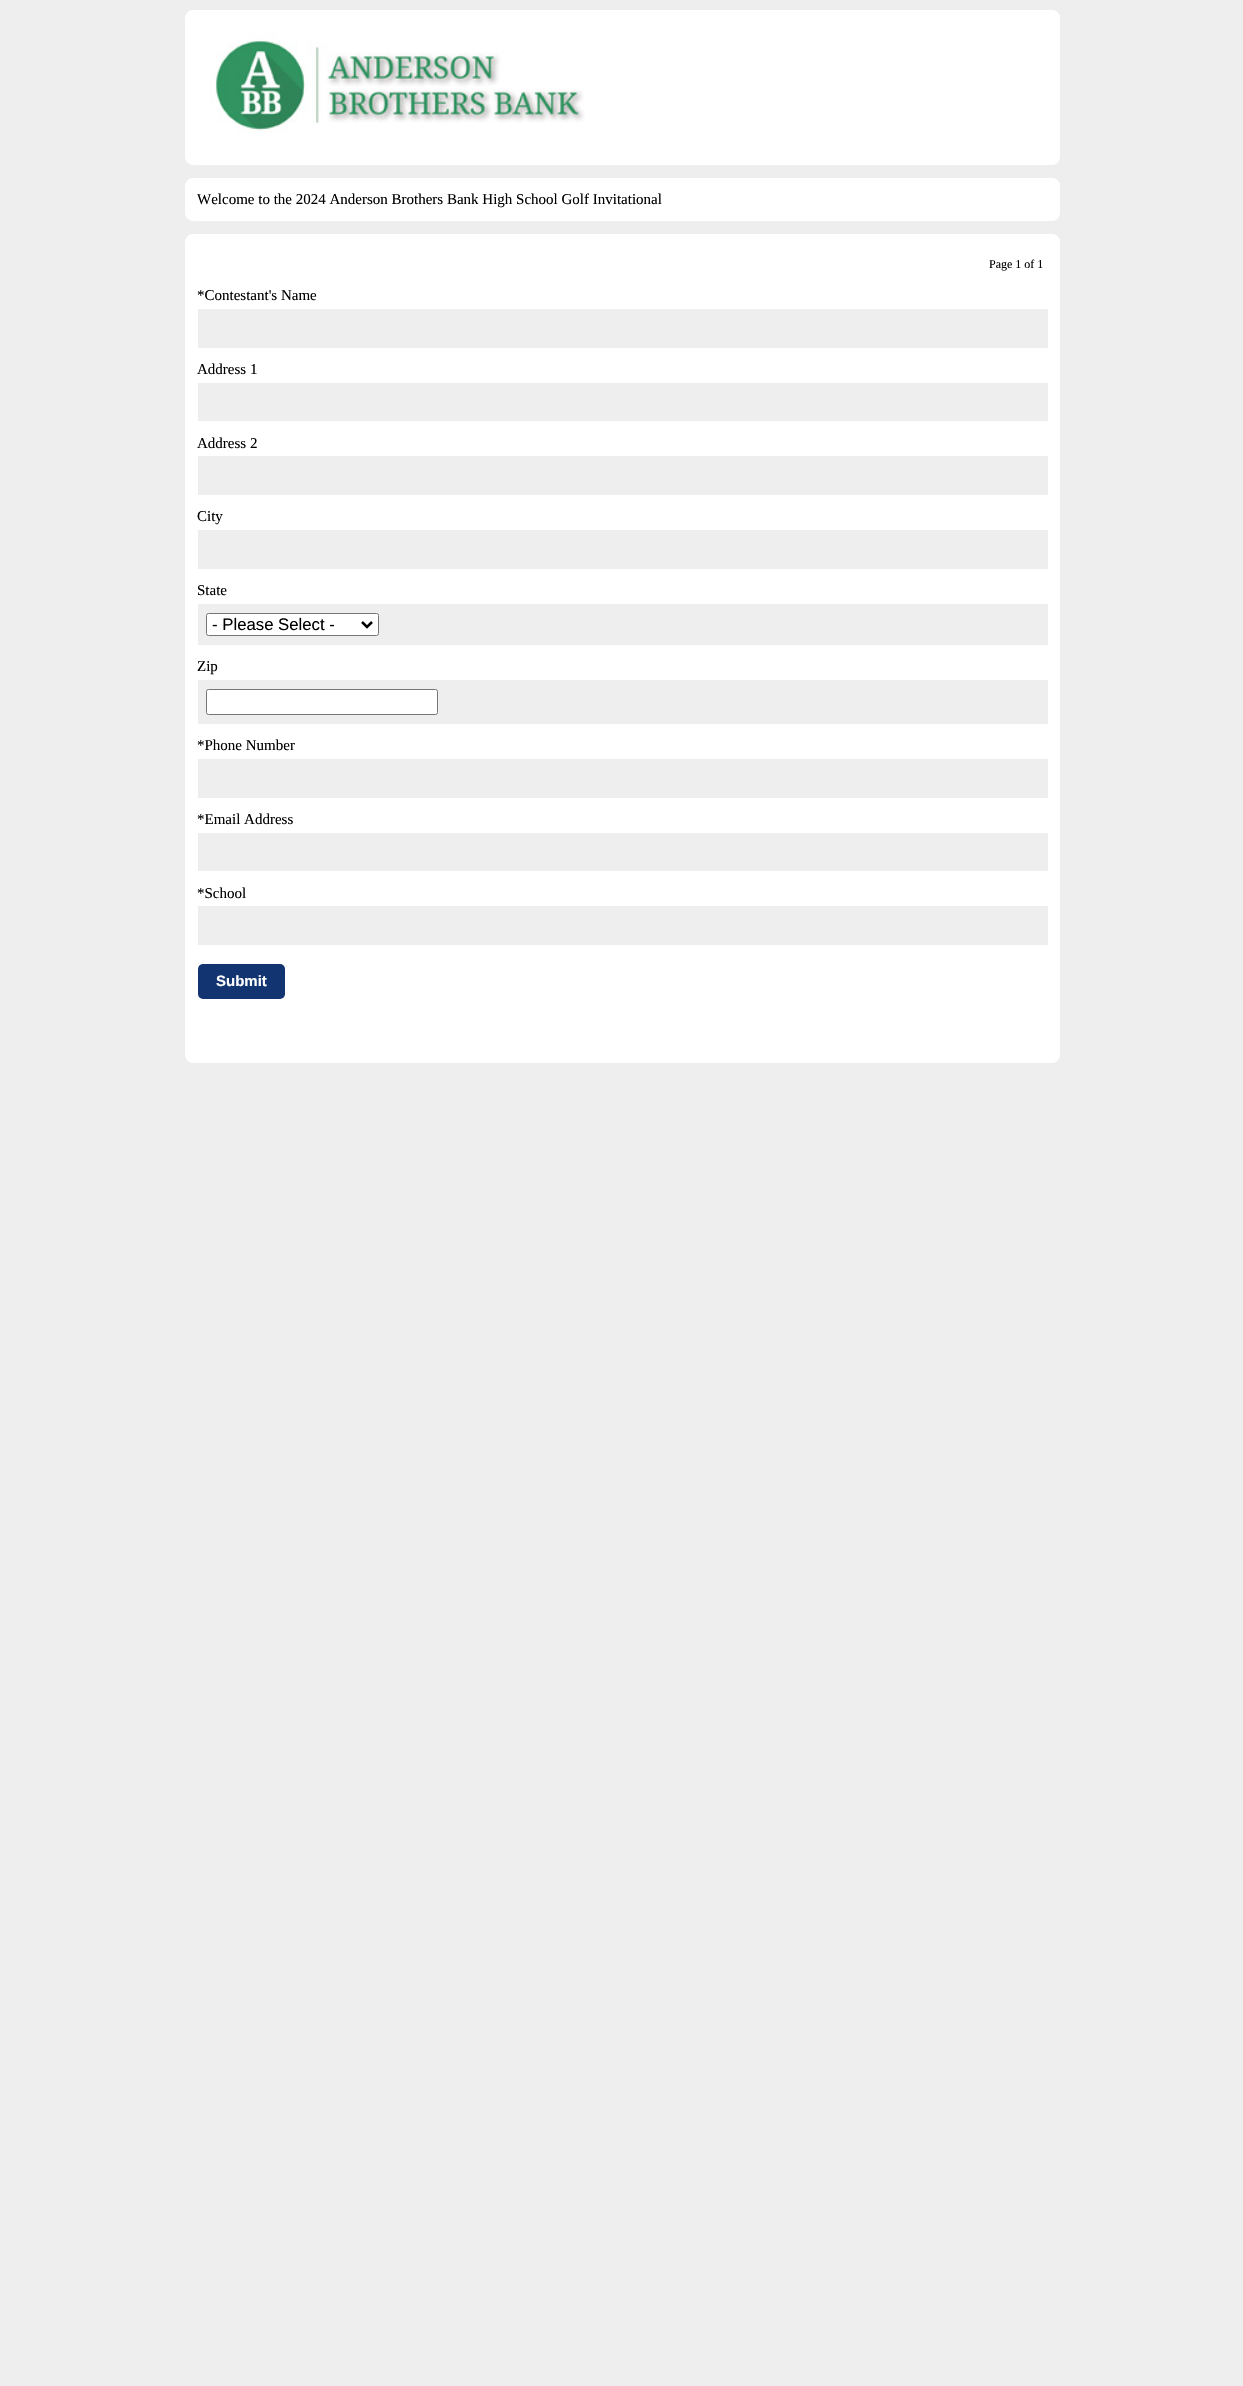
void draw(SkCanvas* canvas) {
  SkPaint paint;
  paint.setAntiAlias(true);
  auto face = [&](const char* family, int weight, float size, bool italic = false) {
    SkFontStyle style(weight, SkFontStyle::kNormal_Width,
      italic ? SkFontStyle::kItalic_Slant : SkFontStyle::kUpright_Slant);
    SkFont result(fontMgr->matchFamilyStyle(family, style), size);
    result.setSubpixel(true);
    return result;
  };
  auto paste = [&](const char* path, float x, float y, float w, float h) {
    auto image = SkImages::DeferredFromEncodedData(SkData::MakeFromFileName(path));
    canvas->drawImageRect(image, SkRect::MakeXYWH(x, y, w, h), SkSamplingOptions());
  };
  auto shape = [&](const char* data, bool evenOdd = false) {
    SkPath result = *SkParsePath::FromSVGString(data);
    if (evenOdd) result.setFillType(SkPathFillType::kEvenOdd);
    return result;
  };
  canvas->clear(0xffeeeeee);
  paint.setColor(0xffffffff);
  canvas->drawRoundRect(SkRect::MakeXYWH(185, 10, 875, 155), 8, 8, paint);
  paste("img/1.png", 209, 33, 376, 99);
  canvas->drawRoundRect(SkRect::MakeXYWH(185, 178, 875, 43), 8, 8, paint);
  canvas->drawRoundRect(SkRect::MakeXYWH(185, 234, 875, 829), 8, 8, paint);
  {
    const struct { float x, y, w, h; SkColor color; } items[] = {
      {198, 309, 850, 39, 0xffeeeeee},
      {198, 383, 850, 38, 0xffeeeeee},
      {198, 456, 850, 39, 0xffeeeeee},
      {198, 530, 850, 39, 0xffeeeeee},
      {198, 604, 850, 41, 0xffeeeeee},
    };
    for (auto [x, y, w, h, color] : items) {
      paint.setColor(color);
      canvas->drawRect(SkRect::MakeXYWH(x, y, w, h), paint);
    }
  }
  paint.setColor(0xffffffff);
  canvas->drawRoundRect(SkRect::MakeXYWH(206.5f, 613.5f, 172, 22), 2, 2, paint);
  paint.setStroke(true);
  paint.setStrokeWidth(1);
  paint.setColor(0xff767676);
  canvas->drawRoundRect(SkRect::MakeXYWH(206.5f, 613.5f, 172, 22), 2, 2, paint);
  paint.setStrokeWidth(2.5f);
  paint.setColor(0xff000000);
  canvas->drawPath(shape("M362 622L367 627L372 622"), paint);
  paint.setStroke(false);
  paint.setColor(0xffeeeeee);
  canvas->drawRect(SkRect::MakeXYWH(198, 680, 850, 44), paint);
  paint.setColor(0xffffffff);
  canvas->drawRoundRect(SkRect::MakeXYWH(206.5f, 689.5f, 231, 25), 2, 2, paint);
  paint.setStroke(true);
  paint.setStrokeWidth(1);
  paint.setColor(0xff767676);
  canvas->drawRoundRect(SkRect::MakeXYWH(206.5f, 689.5f, 231, 25), 2, 2, paint);
  paint.setStroke(false);
  {
    const struct { float x, y, w, h; SkColor color; } items[] = {
      {198, 759, 850, 39, 0xffeeeeee},
      {198, 833, 850, 38, 0xffeeeeee},
      {198, 906, 850, 39, 0xffeeeeee},
    };
    for (auto [x, y, w, h, color] : items) {
      paint.setColor(color);
      canvas->drawRect(SkRect::MakeXYWH(x, y, w, h), paint);
    }
  }
  paint.setColor(0xff123571);
  canvas->drawRoundRect(SkRect::MakeXYWH(198, 964, 87, 35), 5, 5, paint);
  auto f0 = face("Liberation Serif", 400, 15);
  paint.setColor(0xff000000);
  canvas->drawString("Welcome to the 2024 Anderson Brothers Bank High School Golf Invitational", 197, 204, f0, paint);
  auto f1 = face("Liberation Serif", 400, 12);
  canvas->drawString("Page 1 of 1", 989, 268, f1, paint);
  {
    const struct { const char* s; float x, y; } items[] = {
      {"*Contestant's Name", 197, 300},
      {"Address 1", 197, 374},
      {"Address 2", 197, 448},
      {"City", 197, 521},
      {"State", 197, 595},
    };
    for (auto [s, x, y] : items) {
      canvas->drawString(s, x, y, f0, paint);
    }
  }
  auto f2 = face("Liberation Sans", 400, 16.75f);
  canvas->drawString("- Please Select -", 212, 630, f2, paint);
  {
    const struct { const char* s; float x, y; } items[] = {
      {"Zip", 197, 671},
      {"*Phone Number", 197, 750},
      {"*Email Address", 197, 824},
      {"*School", 197, 898},
    };
    for (auto [s, x, y] : items) {
      canvas->drawString(s, x, y, f0, paint);
    }
  }
  auto f3 = face("Liberation Sans", 700, 15);
  paint.setColor(0xffffffff);
  canvas->drawString("Submit", 216, 986, f3, paint);
}
